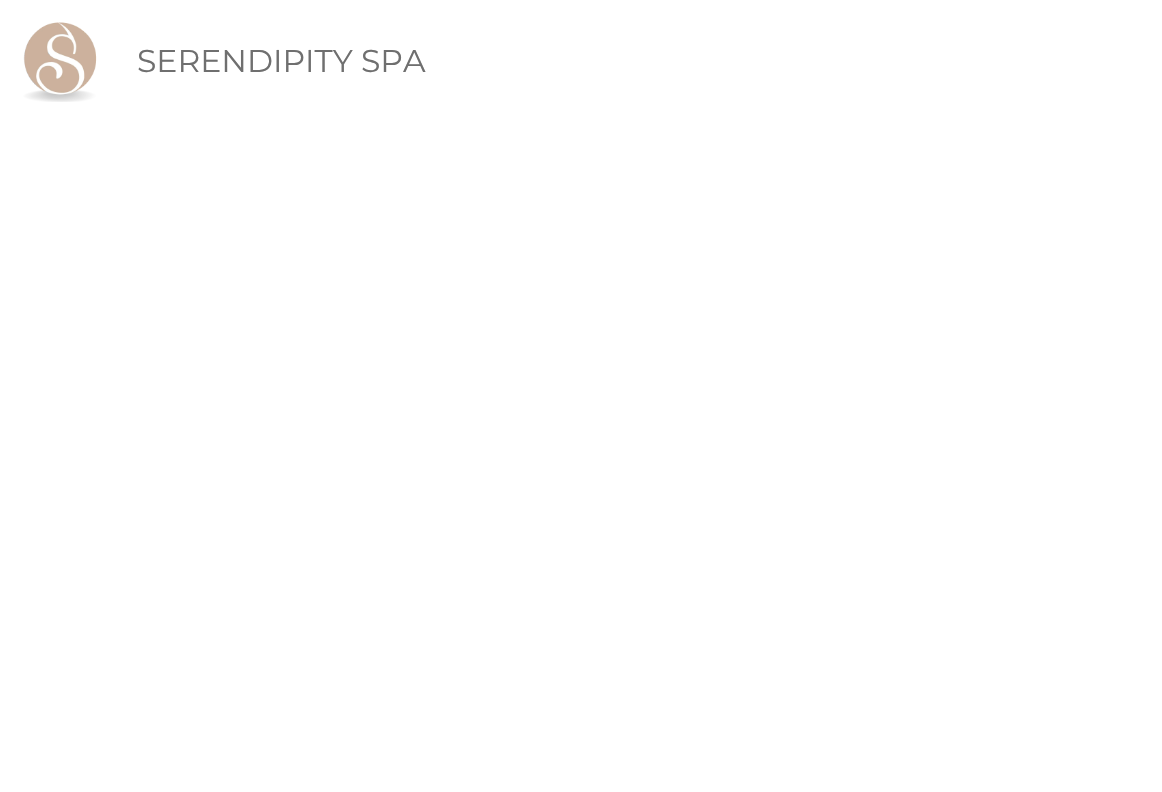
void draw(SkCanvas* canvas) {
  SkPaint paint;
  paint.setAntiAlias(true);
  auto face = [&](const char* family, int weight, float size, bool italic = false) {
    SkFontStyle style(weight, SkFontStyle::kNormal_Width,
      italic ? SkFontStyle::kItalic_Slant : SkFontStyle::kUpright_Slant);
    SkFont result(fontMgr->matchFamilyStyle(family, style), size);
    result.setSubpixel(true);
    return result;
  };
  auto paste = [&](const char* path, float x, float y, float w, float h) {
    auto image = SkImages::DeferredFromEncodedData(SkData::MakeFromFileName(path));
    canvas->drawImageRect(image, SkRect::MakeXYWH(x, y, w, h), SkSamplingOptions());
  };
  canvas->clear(0xffffffff);
  paste("img/1.png", 23, 22, 74, 80);
  auto f0 = face("Montserrat", 400, 31.5f);
  paint.setColor(0xff6f6f6f);
  canvas->drawString("SERENDIPITY SPA", 137, 72, f0, paint);
}
